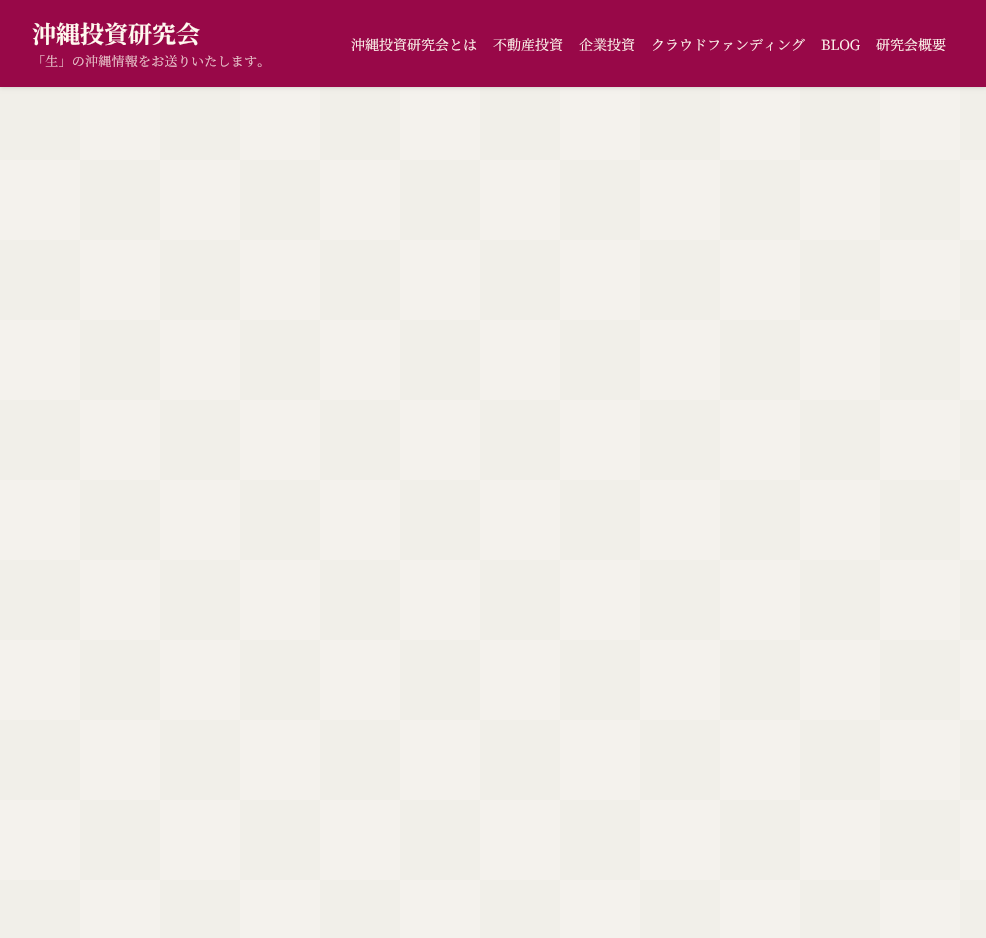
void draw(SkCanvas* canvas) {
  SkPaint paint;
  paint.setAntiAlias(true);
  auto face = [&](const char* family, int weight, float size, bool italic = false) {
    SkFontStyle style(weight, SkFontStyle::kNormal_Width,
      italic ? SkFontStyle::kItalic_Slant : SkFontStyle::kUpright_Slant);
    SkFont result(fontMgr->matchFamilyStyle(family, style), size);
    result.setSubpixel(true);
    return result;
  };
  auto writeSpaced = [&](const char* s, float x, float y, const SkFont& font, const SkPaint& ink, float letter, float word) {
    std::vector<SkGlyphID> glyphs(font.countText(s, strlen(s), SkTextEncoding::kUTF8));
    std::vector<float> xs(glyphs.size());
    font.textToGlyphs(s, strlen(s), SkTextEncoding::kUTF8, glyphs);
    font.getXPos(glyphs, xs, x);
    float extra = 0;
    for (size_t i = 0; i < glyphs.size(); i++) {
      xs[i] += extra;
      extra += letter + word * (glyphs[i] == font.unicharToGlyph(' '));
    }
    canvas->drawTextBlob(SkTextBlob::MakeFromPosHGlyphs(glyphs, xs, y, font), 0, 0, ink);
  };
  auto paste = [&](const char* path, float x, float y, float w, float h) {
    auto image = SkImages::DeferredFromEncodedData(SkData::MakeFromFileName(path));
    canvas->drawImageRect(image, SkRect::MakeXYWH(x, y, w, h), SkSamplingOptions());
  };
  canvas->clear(0xfff1efe9);
  paste("img/1.png", 0, 87, 986, 851);
  paint.setColor(0x1f000000);
  paint.setMaskFilter(SkMaskFilter::MakeBlur(kNormal_SkBlurStyle, 2));
  canvas->drawRect(SkRect::MakeXYWH(0, 1, 986, 87), paint);
  paint.setMaskFilter(nullptr);
  paint.setColor(0xff980848);
  canvas->drawRect(SkRect::MakeXYWH(0, 0, 986, 87), paint);
  auto f0 = face("Noto Serif JP", 700, 24);
  paint.setColor(0xfffff9ef);
  canvas->drawString("沖縄投資研究会", 32, 43, f0, paint);
  auto f1 = face("Noto Serif JP", 400, 13);
  paint.setColor(0xffeac9ce);
  writeSpaced("「生」の沖縄情報をお送りいたします。", 32, 66, f1, paint, 0.25f, 0);
  auto f2 = face("Noto Serif JP", 400, 14);
  paint.setColor(0xfffff9ef);
  {
    const struct { const char* s; float x, y; } items[] = {
      {"沖縄投資研究会とは", 351, 50},
      {"不動産投資", 493, 50},
      {"企業投資", 579, 50},
      {"クラウドファンディング", 651, 50},
      {"BLOG", 821, 50},
      {"研究会概要", 876, 50},
    };
    for (auto [s, x, y] : items) {
      canvas->drawString(s, x, y, f2, paint);
    }
  }
}
